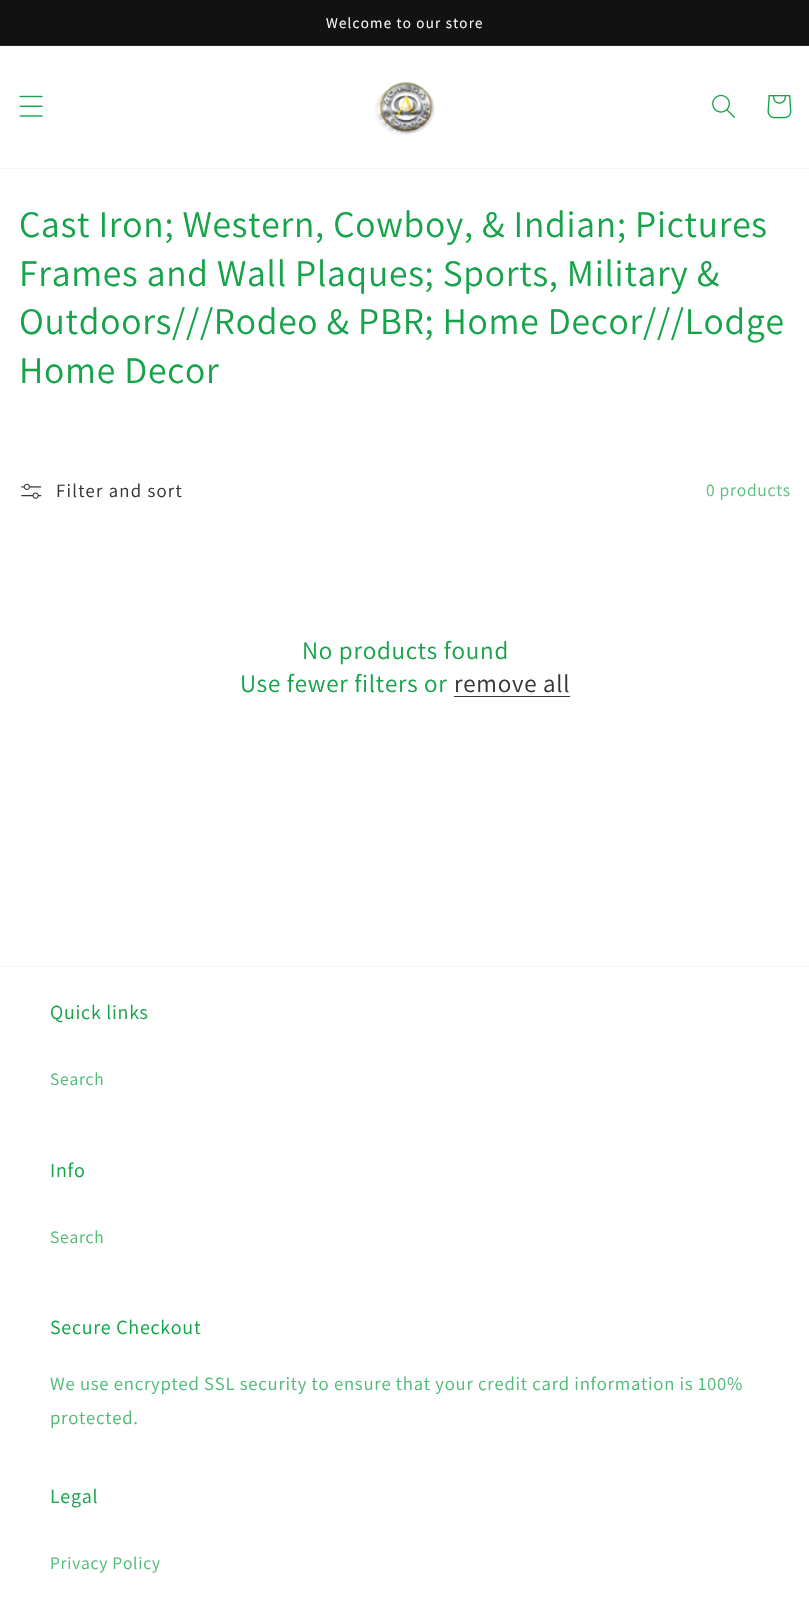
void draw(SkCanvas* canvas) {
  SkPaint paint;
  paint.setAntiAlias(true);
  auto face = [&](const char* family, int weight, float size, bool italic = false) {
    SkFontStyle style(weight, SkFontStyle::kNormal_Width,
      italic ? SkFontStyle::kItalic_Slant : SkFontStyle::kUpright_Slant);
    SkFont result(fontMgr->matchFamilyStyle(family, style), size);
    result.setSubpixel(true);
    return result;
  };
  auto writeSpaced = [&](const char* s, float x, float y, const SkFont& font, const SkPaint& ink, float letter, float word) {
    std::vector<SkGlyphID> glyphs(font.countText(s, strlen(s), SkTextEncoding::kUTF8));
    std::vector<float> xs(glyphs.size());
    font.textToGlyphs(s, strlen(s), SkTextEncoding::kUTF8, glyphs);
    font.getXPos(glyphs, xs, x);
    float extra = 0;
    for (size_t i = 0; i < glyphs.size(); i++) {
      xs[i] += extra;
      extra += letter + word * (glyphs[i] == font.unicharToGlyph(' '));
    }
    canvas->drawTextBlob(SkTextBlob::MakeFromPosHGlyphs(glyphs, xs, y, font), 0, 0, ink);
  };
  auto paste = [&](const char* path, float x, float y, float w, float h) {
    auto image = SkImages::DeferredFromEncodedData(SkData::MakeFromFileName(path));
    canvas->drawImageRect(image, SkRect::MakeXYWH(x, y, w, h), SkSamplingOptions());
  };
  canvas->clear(0xffffffff);
  {
    const struct { float x, y, w, h; SkColor color; } items[] = {
      {0, 0, 809, 45, 0xff121212},
      {0, 45, 809, 1, 0xff252525},
      {0, 168, 809, 1, 0xffecf8f1},
    };
    for (auto [x, y, w, h, color] : items) {
      paint.setColor(color);
      canvas->drawRect(SkRect::MakeXYWH(x, y, w, h), paint);
    }
  }
  paste("img/1.png", 19, 95, 24, 22);
  paste("img/2.png", 375, 81, 60, 54);
  paste("img/3.png", 712, 94, 23, 24);
  paste("img/4.png", 767, 95, 25, 24);
  paste("img/5.png", 21, 483, 21, 16);
  paint.setColor(0xff363636);
  canvas->drawRect(SkRect::MakeXYWH(454, 696, 116, 1), paint);
  paint.setColor(0xffecf8f1);
  canvas->drawRect(SkRect::MakeXYWH(0, 966, 809, 1), paint);
  auto f0 = face("Assistant", 400, 15);
  paint.setColor(0xffffffff);
  writeSpaced("Welcome to our store", 326, 28, f0, paint, 1.25f, 0);
  auto f1 = face("Assistant", 400, 37.5f);
  paint.setColor(0xff16a34a);
  {
    const struct { const char* s; float x, y; } items[] = {
      {"Cast Iron; Western, Cowboy, & Indian; Pictures", 19, 237},
      {"Frames and Wall Plaques; Sports, Military &", 19, 286},
      {"Outdoors///Rodeo & PBR; Home Decor///Lodge", 19, 334},
      {"Home Decor", 19, 383},
    };
    for (auto [s, x, y] : items) {
      writeSpaced(s, x, y, f1, paint, 0.75f, 0);
    }
  }
  auto f2 = face("Assistant", 400, 18.75f);
  paint.setColor(0xff363636);
  writeSpaced("Filter and sort", 56, 497, f2, paint, 1.25f, 0);
  auto f3 = face("Assistant", 400, 17.5f);
  paint.setColor(0xff5cbf80);
  writeSpaced("0 products", 706, 496, f3, paint, 0.75f, 0);
  auto f4 = face("Assistant", 400, 25);
  paint.setColor(0xff16a34a);
  writeSpaced("No products found", 302, 659, f4, paint, 0.75f, 0);
  writeSpaced("Use fewer filters or", 240, 692, f4, paint, 0.75f, 0);
  paint.setColor(0xff363636);
  writeSpaced("remove all", 454, 692, f4, paint, 0.75f, 0);
  auto f5 = face("Assistant", 400, 20);
  paint.setColor(0xff16a34a);
  writeSpaced("Quick links", 50, 1019, f5, paint, 0.75f, 0);
  paint.setColor(0xff50ba77);
  writeSpaced("Search", 50, 1085, f3, paint, 0.75f, 0);
  paint.setColor(0xff16a34a);
  writeSpaced("Info", 50, 1177, f5, paint, 0.75f, 0);
  paint.setColor(0xff50ba77);
  writeSpaced("Search", 50, 1243, f3, paint, 0.75f, 0);
  paint.setColor(0xff16a34a);
  writeSpaced("Secure Checkout", 50, 1334, f5, paint, 0.75f, 0);
  paint.setColor(0xff50ba77);
  writeSpaced("We use encrypted SSL security to ensure that your credit card information is 100%", 50, 1390, f2, paint, 0.75f, 0);
  writeSpaced("protected.", 50, 1424, f2, paint, 0.75f, 0);
  paint.setColor(0xff16a34a);
  writeSpaced("Legal", 50, 1503, f5, paint, 0.75f, 0);
  paint.setColor(0xff50ba77);
  writeSpaced("Privacy Policy", 50, 1569, f3, paint, 0.75f, 0);
}
